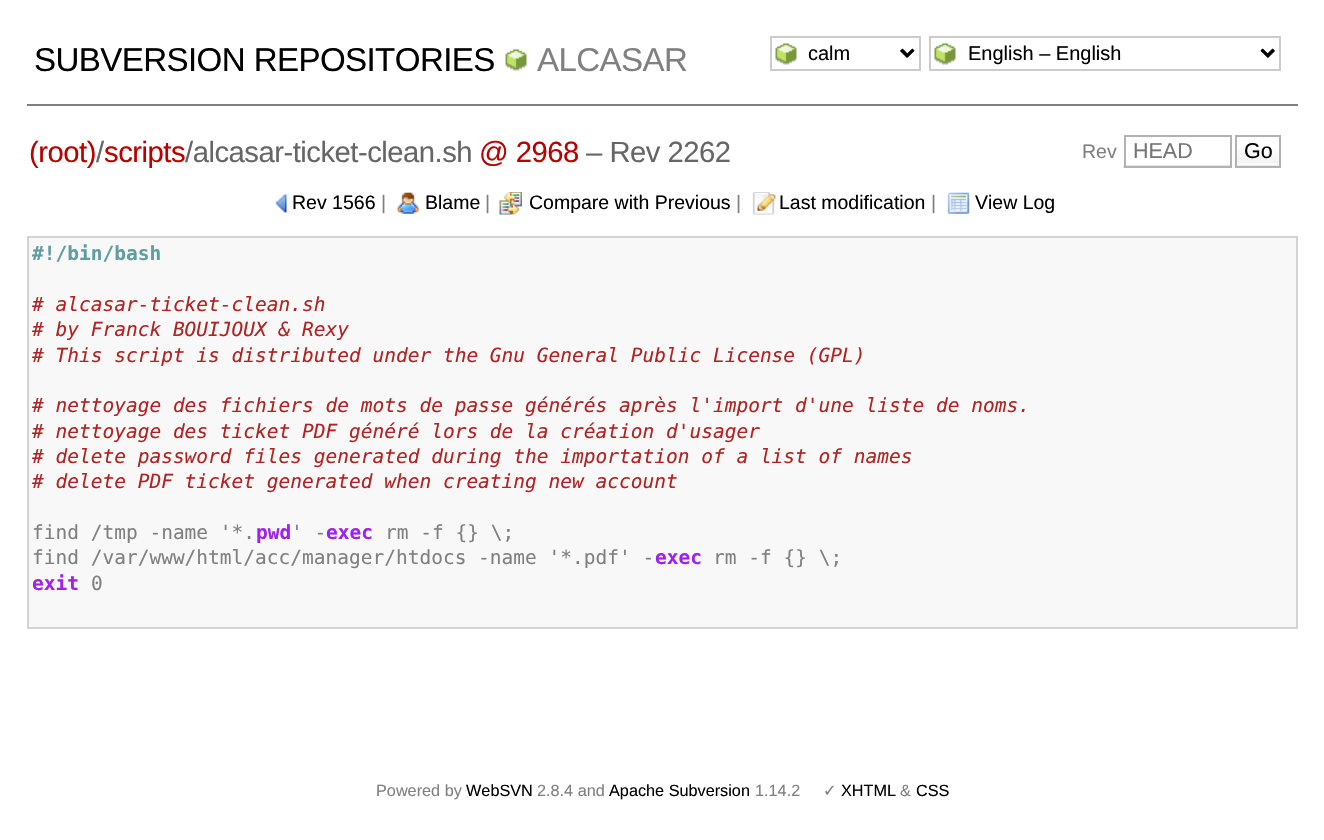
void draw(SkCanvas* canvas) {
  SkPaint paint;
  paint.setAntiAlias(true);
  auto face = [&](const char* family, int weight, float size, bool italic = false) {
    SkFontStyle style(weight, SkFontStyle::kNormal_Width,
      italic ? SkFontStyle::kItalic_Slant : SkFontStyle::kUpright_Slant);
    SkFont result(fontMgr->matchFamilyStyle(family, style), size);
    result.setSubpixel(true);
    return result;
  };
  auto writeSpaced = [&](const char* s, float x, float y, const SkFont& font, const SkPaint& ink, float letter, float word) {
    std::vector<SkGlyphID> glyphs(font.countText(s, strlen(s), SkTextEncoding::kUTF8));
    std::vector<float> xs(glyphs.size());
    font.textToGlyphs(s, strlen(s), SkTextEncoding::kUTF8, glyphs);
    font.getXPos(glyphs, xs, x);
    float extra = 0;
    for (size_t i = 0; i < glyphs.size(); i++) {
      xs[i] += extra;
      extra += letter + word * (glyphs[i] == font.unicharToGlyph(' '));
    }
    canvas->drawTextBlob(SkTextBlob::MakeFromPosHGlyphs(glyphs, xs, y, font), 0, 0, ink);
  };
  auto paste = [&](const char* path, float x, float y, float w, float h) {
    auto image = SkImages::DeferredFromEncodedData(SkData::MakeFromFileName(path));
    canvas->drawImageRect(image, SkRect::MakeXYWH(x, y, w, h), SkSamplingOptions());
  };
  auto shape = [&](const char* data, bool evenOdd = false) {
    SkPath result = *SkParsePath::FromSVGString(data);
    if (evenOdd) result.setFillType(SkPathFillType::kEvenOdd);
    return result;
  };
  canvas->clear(0xffffffff);
  paint.setColor(0xff808080);
  canvas->drawRect(SkRect::MakeXYWH(27, 104, 1271, 2), paint);
  paste("img/1.png", 505, 49, 22, 22);
  paste("img/2.png", 775, 43, 140, 22);
  paint.setStroke(true);
  paint.setStrokeWidth(2);
  paint.setColor(0xffcccccc);
  canvas->drawRect(SkRect::MakeXYWH(771, 37, 149, 33), paint);
  paint.setStrokeWidth(3);
  paint.setColor(0xff000000);
  canvas->drawPath(shape("M901 50L907 56L913 50"), paint);
  paste("img/3.png", 934, 43, 341, 22);
  paint.setStrokeWidth(2);
  paint.setColor(0xffcccccc);
  canvas->drawRect(SkRect::MakeXYWH(930, 37, 350, 33), paint);
  paint.setStrokeWidth(3);
  paint.setColor(0xff000000);
  canvas->drawPath(shape("M1262 50L1268 56L1274 50"), paint);
  paint.setStroke(false);
  paint.setColor(0xffe6e6e6);
  canvas->drawRect(SkRect::MakeXYWH(1123, 165, 109, 3), paint);
  paint.setStroke(true);
  paint.setStrokeWidth(2);
  paint.setColor(0xffb2b2b2);
  canvas->drawRect(SkRect::MakeXYWH(1125, 136, 106, 31), paint);
  paste("img/4.png", 1234, 149, 45, 18);
  canvas->drawRect(SkRect::MakeXYWH(1236, 136, 44, 31), paint);
  paste("img/5.png", 275, 194, 12, 19);
  paste("img/6.png", 397, 192, 22, 22);
  paste("img/7.png", 499, 192, 23, 23);
  paste("img/8.png", 752, 192, 24, 23);
  paste("img/9.png", 947, 192, 23, 22);
  paint.setStroke(false);
  paint.setColor(0xfff8f8f8);
  canvas->drawRect(SkRect::MakeXYWH(28, 237, 1269, 391), paint);
  paint.setStroke(true);
  paint.setColor(0xffd3d3d3);
  canvas->drawRect(SkRect::MakeXYWH(28, 237, 1269, 391), paint);
  auto f0 = face("Liberation Sans", 400, 33.1f);
  paint.setStroke(false);
  paint.setColor(0xff000000);
  writeSpaced("SUBVERSION REPOSITORIES", 34, 71, f0, paint, -0.6f, 0);
  paint.setColor(0xff808080);
  writeSpaced("ALCASAR", 537, 71, f0, paint, -0.6f, 0);
  auto f1 = face("Liberation Sans", 400, 20);
  paint.setColor(0xff000000);
  canvas->drawString("calm", 808, 60, f1, paint);
  canvas->drawString("English – English", 968, 60, f1, paint);
  auto f2 = face("Liberation Sans", 400, 29.25f);
  paint.setColor(0xffbb0000);
  writeSpaced("(root)", 29, 162, f2, paint, -0.5f, 0);
  paint.setColor(0xff666666);
  writeSpaced("/", 96, 162, f2, paint, -0.5f, 0);
  paint.setColor(0xffffffff);
  canvas->drawRect(SkRect::MakeXYWH(104, 140, 1, 2), paint);
  paint.setColor(0xffbb0000);
  writeSpaced("scripts", 104, 162, f2, paint, -0.5f, 0);
  paint.setColor(0xff666666);
  writeSpaced("/alcasar-ticket-clean.sh", 185, 162, f2, paint, -0.5f, 0);
  paint.setColor(0xffbb0000);
  writeSpaced("@ 2968", 479, 162, f2, paint, -0.5f, 0);
  paint.setColor(0xff666666);
  writeSpaced("– Rev 2262", 586, 162, f2, paint, -0.5f, 0);
  auto f3 = face("Liberation Sans", 400, 19.5f);
  paint.setColor(0xff808080);
  canvas->drawString("Rev", 1082, 158, f3, paint);
  auto f4 = face("Liberation Sans", 400, 21.5f);
  paint.setColor(0xff757575);
  canvas->drawString("HEAD", 1133, 158, f4, paint);
  paint.setColor(0xff000000);
  canvas->drawString("Go", 1244, 158, f4, paint);
  canvas->drawString("Rev 1566", 292, 209, f3, paint);
  paint.setColor(0xff808080);
  canvas->drawString("|", 381, 209, f3, paint);
  paint.setColor(0xff000000);
  canvas->drawString("Blame", 425, 209, f3, paint);
  paint.setColor(0xff808080);
  canvas->drawString("|", 485, 209, f3, paint);
  paint.setColor(0xff000000);
  canvas->drawString("Compare with Previous", 529, 209, f3, paint);
  paint.setColor(0xff808080);
  canvas->drawString("|", 736, 209, f3, paint);
  paint.setColor(0xff000000);
  canvas->drawString("Last modification", 779, 209, f3, paint);
  paint.setColor(0xff808080);
  canvas->drawString("|", 931, 209, f3, paint);
  paint.setColor(0xff000000);
  canvas->drawString("View Log", 975, 209, f3, paint);
  auto f5 = face("DejaVu Sans Mono", 700, 19.5f);
  paint.setColor(0xff5f9ea0);
  canvas->drawString("#!/bin/bash", 32, 260, f5, paint);
  auto f6 = face("DejaVu Sans Mono", 400, 19.5f, true);
  paint.setColor(0xffb22222);
  {
    const struct { const char* s; float x, y; } items[] = {
      {"# alcasar-ticket-clean.sh", 32, 311},
      {"# by Franck BOUIJOUX & Rexy", 32, 336},
      {"# This script is distributed under the Gnu General Public License (GPL)", 32, 362},
      {"# nettoyage des fichiers de mots de passe générés après l'import d'une liste de noms.", 32, 412},
      {"# nettoyage des ticket PDF généré lors de la création d'usager", 32, 438},
      {"# delete password files generated during the importation of a list of names", 32, 463},
      {"# delete PDF ticket generated when creating new account", 32, 488},
    };
    for (auto [s, x, y] : items) {
      canvas->drawString(s, x, y, f6, paint);
    }
  }
  auto f7 = face("DejaVu Sans Mono", 400, 19.5f);
  paint.setColor(0xff808080);
  canvas->drawString("find /tmp -name '*.", 32, 539, f7, paint);
  paint.setColor(0xffa020f0);
  canvas->drawString("pwd", 256, 539, f5, paint);
  paint.setColor(0xff808080);
  canvas->drawString("' -", 291, 539, f7, paint);
  paint.setColor(0xffa020f0);
  canvas->drawString("exec", 326, 539, f5, paint);
  paint.setColor(0xff808080);
  canvas->drawString("rm -f {} \\;", 385, 539, f7, paint);
  canvas->drawString("find /var/www/html/acc/manager/htdocs -name '*.pdf' -", 32, 564, f7, paint);
  paint.setColor(0xffa020f0);
  canvas->drawString("exec", 655, 564, f5, paint);
  paint.setColor(0xff808080);
  canvas->drawString("rm -f {} \\;", 713, 564, f7, paint);
  paint.setColor(0xffa020f0);
  canvas->drawString("exit", 32, 590, f5, paint);
  paint.setColor(0xff808080);
  canvas->drawString("0", 91, 590, f7, paint);
  auto f8 = face("Liberation Sans", 400, 16.25f);
  canvas->drawString("Powered by", 376, 796, f8, paint);
  paint.setColor(0xff000000);
  canvas->drawString("WebSVN", 466, 796, f8, paint);
  paint.setColor(0xff808080);
  canvas->drawString("2.8.4 and", 537, 796, f8, paint);
  paint.setColor(0xff000000);
  canvas->drawString("Apache Subversion", 609, 796, f8, paint);
  paint.setColor(0xff808080);
  canvas->drawString("1.14.2", 755, 796, f8, paint);
  auto f9 = face("DejaVu Sans", 400, 16.25f);
  canvas->drawString("✓", 823, 796, f9, paint);
  paint.setColor(0xff000000);
  canvas->drawString("XHTML", 841, 796, f8, paint);
  paint.setColor(0xff808080);
  canvas->drawString("&", 900, 796, f8, paint);
  paint.setColor(0xff000000);
  canvas->drawString("CSS", 916, 796, f8, paint);
}
